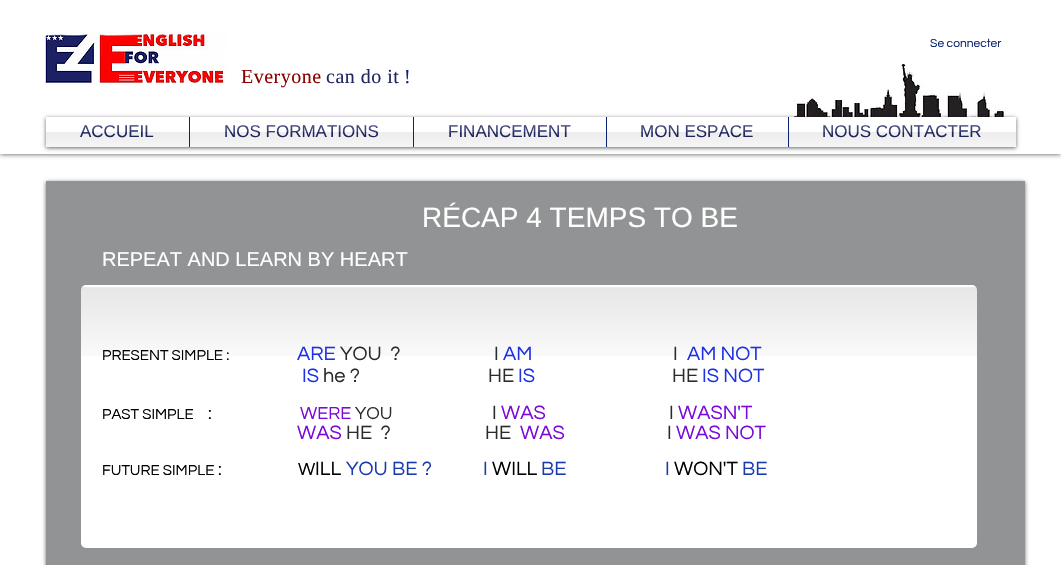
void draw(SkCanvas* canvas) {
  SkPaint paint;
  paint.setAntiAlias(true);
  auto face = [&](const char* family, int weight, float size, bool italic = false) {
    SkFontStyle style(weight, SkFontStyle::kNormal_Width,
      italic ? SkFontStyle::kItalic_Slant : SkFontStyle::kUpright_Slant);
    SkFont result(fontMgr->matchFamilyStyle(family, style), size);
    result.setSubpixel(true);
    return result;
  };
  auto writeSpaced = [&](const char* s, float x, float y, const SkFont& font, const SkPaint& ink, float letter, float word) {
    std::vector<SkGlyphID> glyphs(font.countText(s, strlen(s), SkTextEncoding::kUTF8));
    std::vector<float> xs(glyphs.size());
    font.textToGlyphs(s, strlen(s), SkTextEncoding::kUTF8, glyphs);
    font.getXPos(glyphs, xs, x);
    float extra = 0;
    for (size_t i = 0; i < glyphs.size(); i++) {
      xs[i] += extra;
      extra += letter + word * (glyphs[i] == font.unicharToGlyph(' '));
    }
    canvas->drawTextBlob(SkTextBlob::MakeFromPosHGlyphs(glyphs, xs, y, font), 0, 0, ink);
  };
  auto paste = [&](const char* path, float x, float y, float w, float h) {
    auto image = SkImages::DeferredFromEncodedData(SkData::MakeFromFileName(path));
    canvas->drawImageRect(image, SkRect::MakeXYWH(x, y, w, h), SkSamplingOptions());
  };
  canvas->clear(0xffffffff);
  paint.setColor(0xb3000000);
  paint.setMaskFilter(SkMaskFilter::MakeBlur(kNormal_SkBlurStyle, 2.5f));
  canvas->drawRect(SkRect::MakeXYWH(0, 0, 1061, 154), paint);
  paint.setMaskFilter(nullptr);
  paint.setColor(0xffffffff);
  canvas->drawRect(SkRect::MakeXYWH(0, 0, 1061, 154), paint);
  paste("img/1.png", 45, 32, 182, 53);
  paste("img/2.png", 790, 64, 226, 53);
  paint.setColor(0x99000000);
  paint.setMaskFilter(SkMaskFilter::MakeBlur(kNormal_SkBlurStyle, 2));
  canvas->drawRect(SkRect::MakeXYWH(46, 118, 970, 30), paint);
  paint.setMaskFilter(nullptr);
  {
    const struct { float x, y, w, h; SkColor color; } items[] = {
      {46, 117, 143, 30, 0xffffffff},
      {190, 117, 223, 30, 0xffffffff},
      {189, 117, 1, 30, 0xff0b2370},
      {414, 117, 192, 30, 0xffffffff},
      {413, 117, 1, 30, 0xff0b2370},
      {607, 117, 181, 30, 0xffffffff},
      {606, 117, 1, 30, 0xff0b2370},
      {789, 117, 227, 30, 0xffffffff},
      {788, 117, 1, 30, 0xff0b2370},
    };
    for (auto [x, y, w, h, color] : items) {
      paint.setColor(color);
      canvas->drawRect(SkRect::MakeXYWH(x, y, w, h), paint);
    }
  }
  paint.setColor(0x99000000);
  paint.setMaskFilter(SkMaskFilter::MakeBlur(kNormal_SkBlurStyle, 2));
  canvas->drawRect(SkRect::MakeXYWH(46, 182, 979, 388), paint);
  paint.setMaskFilter(nullptr);
  paint.setColor(0xff929394);
  canvas->drawRect(SkRect::MakeXYWH(46, 181, 979, 384), paint);
  paint.setColor(0xffffffff);
  canvas->drawRoundRect(SkRect::MakeXYWH(81, 285, 896, 263), 5, 5, paint);
  paste("img/8.png", 81, 287, 896, 69);
  auto f0 = face("Questrial", 400, 12);
  paint.setColor(0xff0b2370);
  canvas->drawString("Se connecter", 930, 47, f0, paint);
  auto f1 = face("Liberation Serif", 400, 20);
  paint.setColor(0xff8b0000);
  writeSpaced("Everyone", 241, 83, f1, paint, 0.5f, 0);
  paint.setColor(0xff1f2663);
  writeSpaced("can do it", 326, 83, f1, paint, 0.5f, 0);
  paint.setColor(0xff0b2370);
  writeSpaced("!", 404, 83, f1, paint, 0.5f, 0);
  auto f2 = face("Liberation Sans", 400, 17);
  paint.setColor(0xff1f2663);
  canvas->drawString("ACCUEIL", 80, 137, f2, paint);
  paste("img/3.png", 46, 125, 143, 22);
  canvas->drawString("NOS FORMATIONS", 224, 137, f2, paint);
  paste("img/4.png", 190, 125, 223, 22);
  canvas->drawString("FINANCEMENT", 448, 137, f2, paint);
  paste("img/5.png", 414, 125, 192, 22);
  canvas->drawString("MON ESPACE", 640, 137, f2, paint);
  paste("img/6.png", 607, 125, 181, 22);
  canvas->drawString("NOUS CONTACTER", 822, 137, f2, paint);
  paste("img/7.png", 789, 125, 227, 22);
  auto f3 = face("Liberation Sans", 400, 28);
  paint.setColor(0xffffffff);
  canvas->drawString("RÉCAP 4 TEMPS TO BE", 422, 227, f3, paint);
  auto f4 = face("Liberation Sans", 400, 20);
  canvas->drawString("REPEAT AND LEARN BY HEART", 102, 266, f4, paint);
  auto f5 = face("Questrial", 400, 15);
  paint.setColor(0xff000000);
  canvas->drawString("PRESENT SIMPLE :", 102, 360, f5, paint);
  auto f6 = face("Questrial", 400, 20);
  paint.setColor(0xff1e31e3);
  canvas->drawString("ARE", 297, 360, f6, paint);
  paint.setColor(0xff2a2b2c);
  canvas->drawString("YOU  ?", 340, 360, f6, paint);
  canvas->drawString("I", 494, 360, f6, paint);
  paint.setColor(0xff1e31e3);
  canvas->drawString("AM", 503, 360, f6, paint);
  paint.setColor(0xff2a2b2c);
  canvas->drawString("I", 673, 360, f6, paint);
  paint.setColor(0xff1e31e3);
  canvas->drawString("AM NOT", 687, 360, f6, paint);
  canvas->drawString("IS", 302, 382, f6, paint);
  paint.setColor(0xff2a2b2c);
  canvas->drawString("he ?", 323, 382, f6, paint);
  canvas->drawString("HE", 488, 382, f6, paint);
  paint.setColor(0xff1e31e3);
  canvas->drawString("IS", 518, 382, f6, paint);
  paint.setColor(0xff2a2b2c);
  canvas->drawString("HE", 672, 382, f6, paint);
  paint.setColor(0xff1e31e3);
  canvas->drawString("IS NOT", 702, 382, f6, paint);
  paint.setColor(0xff000000);
  canvas->drawString("PAST SIMPLE", 102, 419, f5, paint);
  auto f7 = face("Questrial", 400, 18);
  canvas->drawString(":", 208, 419, f7, paint);
  paint.setColor(0xff7b09d9);
  canvas->drawString("WERE", 300, 419, f7, paint);
  paint.setColor(0xff2a2b2c);
  canvas->drawString("YOU", 355, 419, f7, paint);
  canvas->drawString("I", 492, 419, f6, paint);
  paint.setColor(0xff7b09d9);
  canvas->drawString("WAS", 501, 419, f6, paint);
  paint.setColor(0xff2a2b2c);
  canvas->drawString("I", 669, 419, f6, paint);
  paint.setColor(0xff7b09d9);
  canvas->drawString("WASN'T", 678, 419, f6, paint);
  canvas->drawString("WAS", 297, 439, f6, paint);
  paint.setColor(0xff2a2b2c);
  canvas->drawString("HE  ?", 346, 439, f6, paint);
  canvas->drawString("HE", 485, 439, f6, paint);
  paint.setColor(0xff7b09d9);
  canvas->drawString("WAS", 520, 439, f6, paint);
  paint.setColor(0xff2a2b2c);
  canvas->drawString("I", 667, 439, f6, paint);
  paint.setColor(0xff7b09d9);
  canvas->drawString("WAS NOT", 676, 439, f6, paint);
  paint.setColor(0xff000000);
  canvas->drawString("FUTURE SIMPLE", 102, 475, f5, paint);
  canvas->drawString(":", 218, 475, f7, paint);
  canvas->drawString("W", 298, 475, f7, paint);
  canvas->drawString("ILL", 315, 475, f6, paint);
  paint.setColor(0xff183bad);
  canvas->drawString("YOU BE ?", 346, 475, f6, paint);
  canvas->drawString("I", 483, 475, f6, paint);
  paint.setColor(0xff000000);
  canvas->drawString("WILL", 492, 475, f6, paint);
  paint.setColor(0xff183bad);
  canvas->drawString("BE", 541, 475, f6, paint);
  canvas->drawString("I", 665, 475, f6, paint);
  paint.setColor(0xff000000);
  canvas->drawString("WON'T", 674, 475, f6, paint);
  paint.setColor(0xff183bad);
  canvas->drawString("BE", 742, 475, f6, paint);
}
